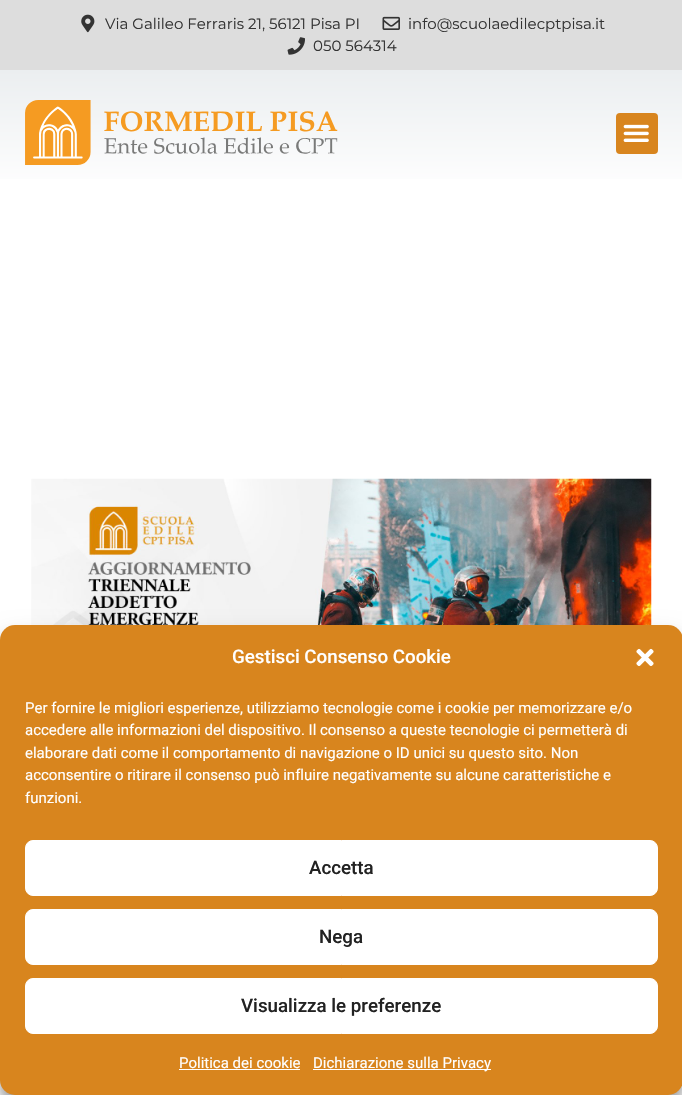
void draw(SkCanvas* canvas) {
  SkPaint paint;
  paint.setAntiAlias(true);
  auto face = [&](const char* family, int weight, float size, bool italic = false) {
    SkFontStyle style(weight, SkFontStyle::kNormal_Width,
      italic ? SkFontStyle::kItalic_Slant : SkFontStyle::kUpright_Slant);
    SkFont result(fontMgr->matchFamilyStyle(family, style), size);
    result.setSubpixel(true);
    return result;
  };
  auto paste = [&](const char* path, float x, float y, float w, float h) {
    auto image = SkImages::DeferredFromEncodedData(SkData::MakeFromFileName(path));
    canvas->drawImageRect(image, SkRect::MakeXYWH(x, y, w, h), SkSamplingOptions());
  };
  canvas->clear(0xffffffff);
  paint.setColor(0xffdddddd);
  canvas->drawRect(SkRect::MakeXYWH(0, 0, 682, 70), paint);
  paste("img/1.png", 81, 14, 14, 19);
  paste("img/2.png", 382, 16, 18, 14);
  paste("img/3.png", 287, 37, 18, 18);
  {
    const SkColor colors[] = {0xffebeef0, 0xffffffff};
    const float stops[] = {0, 1};
    const SkPoint ends[] = {{341, 70}, {341, 195}};
    paint.setShader(SkGradientShader::MakeLinear(ends, colors, stops, 2, SkTileMode::kClamp));
    paint.setAlpha(255);
  }
  canvas->drawRect(SkRect::MakeXYWH(0, 70, 682, 109), paint);
  paste("img/4.png", 25, 100, 313, 65);
  paint.setShader(nullptr);
  paint.setColor(0xffd8851e);
  canvas->drawRoundRect(SkRect::MakeXYWH(616, 113, 42, 41), 4, 4, paint);
  paste("img/5.png", 623, 124, 26, 18);
  paste("img/6.png", 31, 478, 621, 147);
  paint.setColor(0x3b000000);
  paint.setMaskFilter(SkMaskFilter::MakeBlur(kNormal_SkBlurStyle, 4));
  canvas->drawRoundRect(SkRect::MakeXYWH(0, 633, 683, 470), 15, 15, paint);
  paint.setMaskFilter(nullptr);
  paint.setColor(0x30000000);
  paint.setMaskFilter(SkMaskFilter::MakeBlur(kNormal_SkBlurStyle, 12.5f));
  canvas->drawRoundRect(SkRect::MakeXYWH(0, 638, 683, 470), 15, 15, paint);
  paint.setMaskFilter(nullptr);
  paint.setColor(0xffd8851e);
  canvas->drawRoundRect(SkRect::MakeXYWH(0, 625, 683, 470), 15, 15, paint);
  paste("img/7.png", 636, 648, 18, 18);
  paint.setColor(0xffffffff);
  canvas->drawRoundRect(SkRect::MakeXYWH(25.5f, 840.5f, 632, 55), 7.5f, 7.5f, paint);
  paint.setStroke(true);
  paint.setStrokeWidth(1);
  canvas->drawRoundRect(SkRect::MakeXYWH(25.5f, 840.5f, 632, 55), 7.5f, 7.5f, paint);
  paint.setStroke(false);
  canvas->drawRoundRect(SkRect::MakeXYWH(25.5f, 909.5f, 632, 55), 7.5f, 7.5f, paint);
  paint.setStroke(true);
  canvas->drawRoundRect(SkRect::MakeXYWH(25.5f, 909.5f, 632, 55), 7.5f, 7.5f, paint);
  paint.setStroke(false);
  canvas->drawRoundRect(SkRect::MakeXYWH(25.5f, 978.5f, 632, 55), 7.5f, 7.5f, paint);
  paint.setStroke(true);
  canvas->drawRoundRect(SkRect::MakeXYWH(25.5f, 978.5f, 632, 55), 7.5f, 7.5f, paint);
  paint.setStroke(false);
  canvas->drawRect(SkRect::MakeXYWH(179, 1069, 121, 1), paint);
  canvas->drawRect(SkRect::MakeXYWH(313, 1069, 178, 1), paint);
  auto f0 = face("Montserrat", 400, 15);
  paint.setColor(0xff333333);
  {
    const struct { const char* s; float x, y; } items[] = {
      {"Via Galileo Ferraris 21, 56121 Pisa PI", 105, 29},
      {"info@scuolaedilecptpisa.it", 408, 29},
      {"050 564314", 313, 51},
    };
    for (auto [s, x, y] : items) {
      canvas->drawString(s, x, y, f0, paint);
    }
  }
  auto f1 = face("Roboto", 500, 18.75f);
  paint.setColor(0xffffffff);
  canvas->drawString("Gestisci Consenso Cookie", 232, 663, f1, paint);
  auto f2 = face("Roboto", 400, 15);
  {
    const struct { const char* s; float x, y; } items[] = {
      {"Per fornire le migliori esperienze, utilizziamo tecnologie come i cookie per memorizzare e/o", 25, 713},
      {"accedere alle informazioni del dispositivo. Il consenso a queste tecnologie ci permetterà di", 25, 735},
      {"elaborare dati come il comportamento di navigazione o ID unici su questo sito. Non", 25, 758},
      {"acconsentire o ritirare il consenso può influire negativamente su alcune caratteristiche e", 25, 780},
      {"funzioni.", 25, 803},
    };
    for (auto [s, x, y] : items) {
      canvas->drawString(s, x, y, f2, paint);
    }
  }
  paint.setColor(0xff222222);
  {
    const struct { const char* s; float x, y; } items[] = {
      {"Accetta", 309, 874},
      {"Nega", 319, 943},
      {"Visualizza le preferenze", 241, 1012},
    };
    for (auto [s, x, y] : items) {
      canvas->drawString(s, x, y, f1, paint);
    }
  }
  paint.setColor(0xffffffff);
  canvas->drawString("Politica dei cookie", 179, 1068, f2, paint);
  canvas->drawString("Dichiarazione sulla Privacy", 313, 1068, f2, paint);
}
